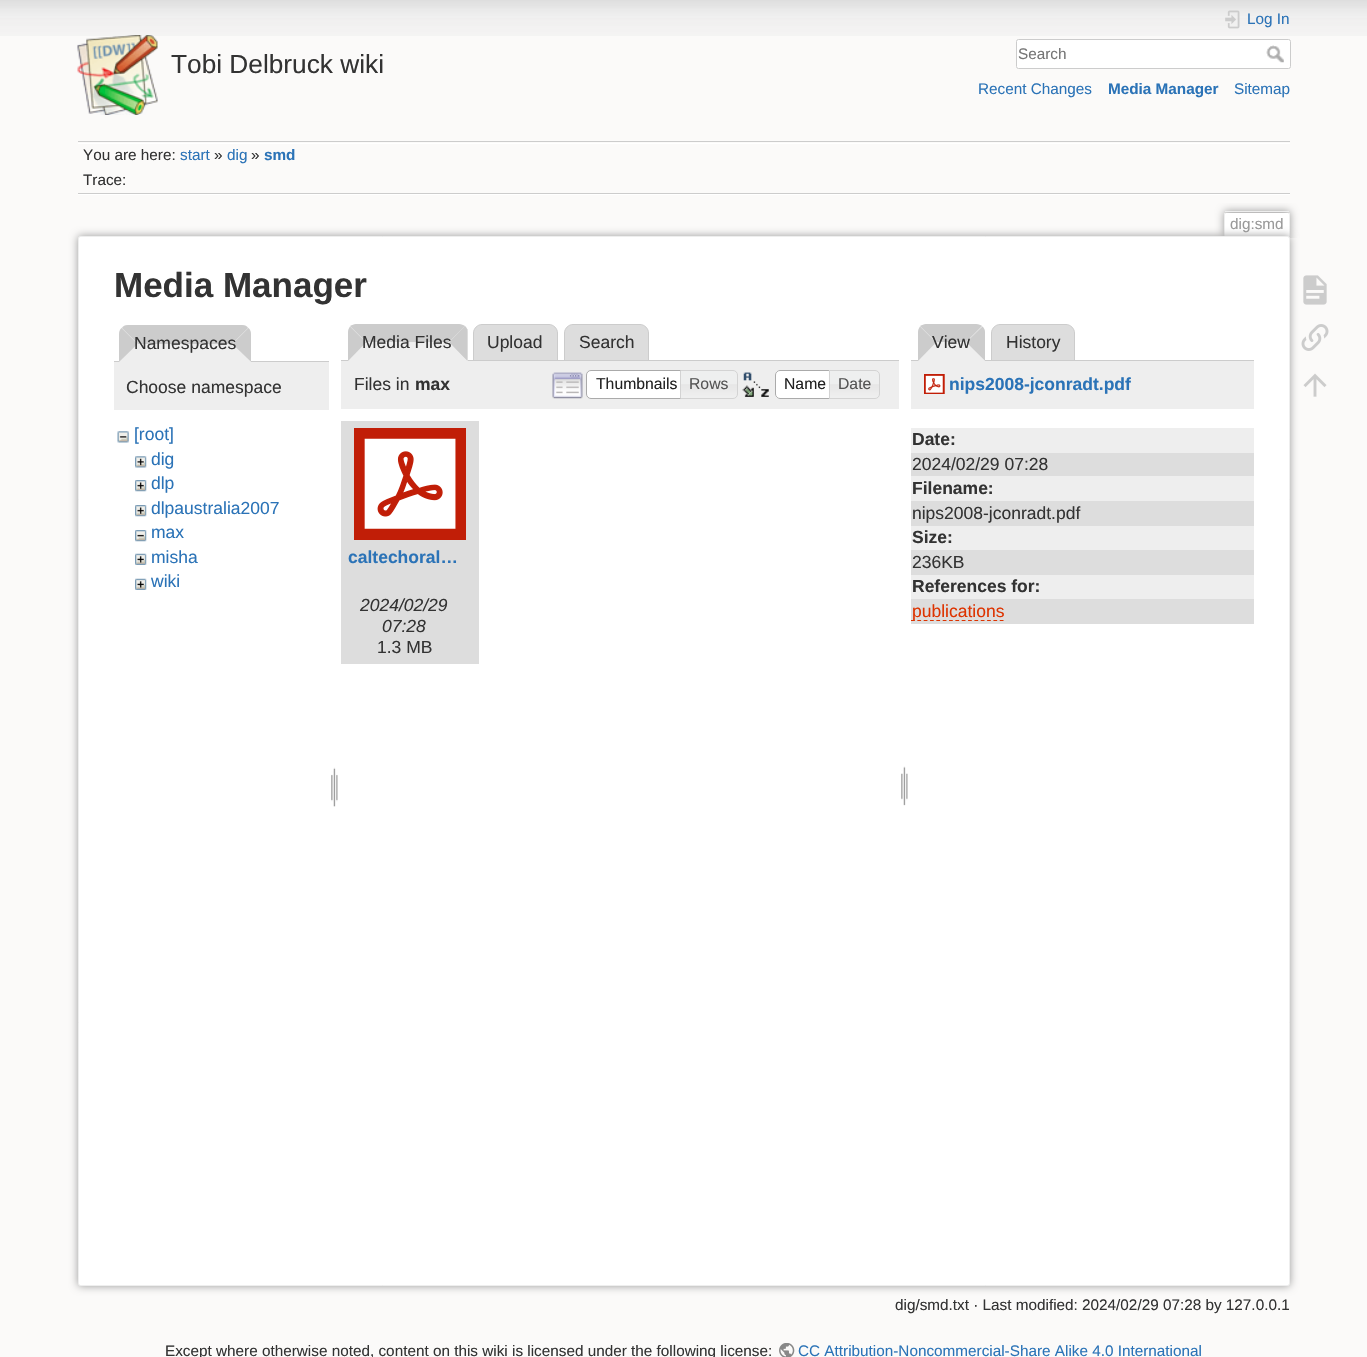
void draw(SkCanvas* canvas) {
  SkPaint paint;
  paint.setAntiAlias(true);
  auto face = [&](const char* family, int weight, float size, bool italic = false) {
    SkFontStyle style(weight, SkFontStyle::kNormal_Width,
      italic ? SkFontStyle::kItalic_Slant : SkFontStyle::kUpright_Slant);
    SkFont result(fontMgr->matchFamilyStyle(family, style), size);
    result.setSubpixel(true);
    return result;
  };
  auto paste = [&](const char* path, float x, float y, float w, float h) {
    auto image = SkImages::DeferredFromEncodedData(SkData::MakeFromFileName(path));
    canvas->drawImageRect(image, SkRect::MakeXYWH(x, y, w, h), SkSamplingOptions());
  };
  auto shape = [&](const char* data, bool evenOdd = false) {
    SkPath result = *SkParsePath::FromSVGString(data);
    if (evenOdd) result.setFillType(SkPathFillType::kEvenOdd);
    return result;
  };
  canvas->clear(0xfffbfaf9);
  paste("img/1.png", 0, 0, 1367, 36);
  paste("img/2.png", 77, 35, 81, 80);
  paste("img/3.png", 1225, 10, 15, 19);
  paint.setColor(0xffffffff);
  canvas->drawRoundRect(SkRect::MakeXYWH(1016.5f, 39.5f, 274, 29), 2, 2, paint);
  paint.setStroke(true);
  paint.setStrokeWidth(1);
  paint.setColor(0xffcccccc);
  canvas->drawRoundRect(SkRect::MakeXYWH(1016.5f, 39.5f, 274, 29), 2, 2, paint);
  paste("img/4.png", 1266, 45, 18, 18);
  paint.setStroke(false);
  {
    const struct { float x, y, w, h; SkColor color; } items[] = {
      {78, 141, 1212, 1, 0xffcccccc},
      {78, 194, 1212, 1, 0xffffffff},
      {78, 143, 1212, 1, 0xffffffff},
      {78, 193, 1212, 1, 0xffcccccc},
    };
    for (auto [x, y, w, h, color] : items) {
      paint.setColor(color);
      canvas->drawRect(SkRect::MakeXYWH(x, y, w, h), paint);
    }
  }
  canvas->save();
  canvas->clipRect(SkRect::MakeXYWH(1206, 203, 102, 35));
  paint.setColor(0xff999999);
  paint.setMaskFilter(SkMaskFilter::MakeBlur(kNormal_SkBlurStyle, 4));
  canvas->drawRoundRect(SkRect::MakeXYWH(1224, 211, 66, 27), 2.5f, 2.5f, paint);
  paint.setMaskFilter(nullptr);
  canvas->restore();
  paint.setColor(0xffffffff);
  canvas->drawPath(shape("M1226 213H1288C1288.5 213 1289 213.5 1289 214V238H1225V214C1225 213.5 1225.5 213 1226 213Z"), paint);
  {
    const struct { float x, y, w, h; SkColor color; } items[] = {
      {1225, 211, 64, 1, 0xffeeeeee},
      {1289, 213, 1, 25, 0xffeeeeee},
      {1224, 213, 1, 25, 0xffeeeeee},
    };
    for (auto [x, y, w, h, color] : items) {
      paint.setColor(color);
      canvas->drawRect(SkRect::MakeXYWH(x, y, w, h), paint);
    }
  }
  paint.setColor(0xff999999);
  paint.setMaskFilter(SkMaskFilter::MakeBlur(kNormal_SkBlurStyle, 4.5f));
  canvas->drawRoundRect(SkRect::MakeXYWH(78, 236, 1212, 1050), 2.5f, 2.5f, paint);
  paint.setMaskFilter(nullptr);
  paint.setColor(0xffffffff);
  canvas->drawRoundRect(SkRect::MakeXYWH(78.5f, 236.5f, 1211, 1049), 2, 2, paint);
  paint.setStroke(true);
  paint.setColor(0xffeeeeee);
  canvas->drawRoundRect(SkRect::MakeXYWH(78.5f, 236.5f, 1211, 1049), 2, 2, paint);
  paint.setStroke(false);
  canvas->drawRect(SkRect::MakeXYWH(114, 362, 215, 48), paint);
  paint.setColor(0xffcccccc);
  canvas->drawRect(SkRect::MakeXYWH(114, 361, 215, 1), paint);
  paint.setColor(0xffeeeeee);
  canvas->drawPath(shape("M128 325H242C247 325 251 329 251 334V363H119V334C119 329 123 325 128 325Z"), paint);
  paint.setColor(0xffcccccc);
  canvas->drawPath(shape("M128 325H242C245 325 247 326 248 328L232 344H138L122 328C123 326 125 325 128 325Z"), paint);
  canvas->drawPath(shape("M248.5 328L232.5 344L251 362V334C251 331.5 250 329.5 248.5 328Z"), paint);
  paint.setColor(0xffeeeeee);
  canvas->drawPath(shape("M251 362L232 344H138L119 362Z"), paint);
  paint.setColor(0xffcccccc);
  canvas->drawPath(shape("M121.5 328C120 329.5 119 331.5 119 334V362L137.5 344Z"), paint);
  paste("img/5.png", 117, 431, 12, 12);
  paste("img/6.png", 135, 456, 12, 12);
  paste("img/7.png", 135, 480, 12, 12);
  paste("img/7.png", 135, 505, 12, 12);
  paste("img/8.png", 135, 530, 12, 12);
  paste("img/9.png", 135, 553, 12, 12);
  paste("img/9.png", 135, 578, 12, 12);
  paste("img/10.png", 331, 767, 7, 40);
  paint.setColor(0xffdddddd);
  canvas->drawPath(shape("M482 324.5H549C553.5 324.5 557.5 328.5 557.5 333V360.5H473.5V333C473.5 328.5 477.5 324.5 482 324.5Z"), paint);
  paint.setStroke(true);
  paint.setColor(0xffcccccc);
  canvas->drawPath(shape("M482 324.5H549C553.5 324.5 557.5 328.5 557.5 333V360.5H473.5V333C473.5 328.5 477.5 324.5 482 324.5Z"), paint);
  paint.setStroke(false);
  paint.setColor(0xffdddddd);
  canvas->drawPath(shape("M573 324.5H640C644.5 324.5 648.5 328.5 648.5 333V360.5H564.5V333C564.5 328.5 568.5 324.5 573 324.5Z"), paint);
  paint.setStroke(true);
  paint.setColor(0xffcccccc);
  canvas->drawPath(shape("M573 324.5H640C644.5 324.5 648.5 328.5 648.5 333V360.5H564.5V333C564.5 328.5 568.5 324.5 573 324.5Z"), paint);
  paint.setStroke(false);
  canvas->drawRect(SkRect::MakeXYWH(341, 360, 558, 1), paint);
  paint.setColor(0xffeeeeee);
  canvas->drawPath(shape("M357 324H459C464 324 468 328 468 333V361H348V333C348 328 352 324 357 324Z"), paint);
  paint.setColor(0xffcccccc);
  canvas->drawPath(shape("M356 324C354 324 352 325 350 326L366 342H449L465 326C463 325 461 324 459 324Z"), paint);
  canvas->drawPath(shape("M467.5 361L449 342.5L465 326C466 327 467 328.5 467.5 329.5Z"), paint);
  paint.setColor(0xffeeeeee);
  canvas->drawPath(shape("M467 361L449 342H366L348 361Z"), paint);
  paint.setColor(0xffcccccc);
  canvas->drawPath(shape("M350 326.5C349 328 348 330 348 332V361L366 342.5Z"), paint);
  paint.setColor(0xffeeeeee);
  canvas->drawRect(SkRect::MakeXYWH(341, 361, 558, 48), paint);
  paste("img/11.png", 552, 372, 31, 27);
  paint.setColor(0xffffffff);
  canvas->drawPath(shape("M591 370.5H685.5V398.5H591C588.5 398.5 586.5 396.5 586.5 394V375C586.5 372.5 588.5 370.5 591 370.5Z"), paint);
  paint.setStroke(true);
  paint.setColor(0xffaaaaaa);
  canvas->drawPath(shape("M591 370.5H685.5V398.5H591C588.5 398.5 586.5 396.5 586.5 394V375C586.5 372.5 588.5 370.5 591 370.5Z"), paint);
  paste("img/12.png", 681, 370, 56, 29);
  paint.setColor(0xffd3d3d3);
  canvas->drawPath(shape("M680.5 370.5H733C735.5 370.5 737.5 372.5 737.5 375V394C737.5 396.5 735.5 398.5 733 398.5H680.5Z"), paint);
  paste("img/13.png", 742, 372, 27, 25);
  paint.setStroke(false);
  paint.setColor(0xffffffff);
  canvas->drawPath(shape("M780 370H835V399H780C777 399 775 397 775 394V375C775 372 777 370 780 370Z"), paint);
  paint.setColor(0xfffbfbfb);
  canvas->drawRect(SkRect::MakeXYWH(776, 371, 1, 1), paint);
  paint.setStroke(true);
  paint.setColor(0xffaaaaaa);
  canvas->drawPath(shape("M780 370.5H834.5V398.5H780C777.5 398.5 775.5 396.5 775.5 394V375C775.5 372.5 777.5 370.5 780 370.5Z"), paint);
  paste("img/14.png", 828, 370, 52, 29);
  paint.setColor(0xffd3d3d3);
  canvas->drawPath(shape("M829.5 370.5H875C877.5 370.5 879.5 372.5 879.5 375V394C879.5 396.5 877.5 398.5 875 398.5H829.5Z"), paint);
  paint.setStroke(false);
  paint.setColor(0xffdddddd);
  canvas->drawRect(SkRect::MakeXYWH(341, 421, 138, 243), paint);
  paste("img/15.png", 354, 428, 112, 112);
  paste("img/16.png", 901, 766, 7, 40);
  canvas->drawPath(shape("M1000 324.5H1066C1070.5 324.5 1074.5 328.5 1074.5 333V360.5H991.5V333C991.5 328.5 995.5 324.5 1000 324.5Z"), paint);
  paint.setStroke(true);
  paint.setColor(0xffcccccc);
  canvas->drawPath(shape("M1000 324.5H1066C1070.5 324.5 1074.5 328.5 1074.5 333V360.5H991.5V333C991.5 328.5 995.5 324.5 1000 324.5Z"), paint);
  paint.setStroke(false);
  canvas->drawRect(SkRect::MakeXYWH(911, 360, 343, 1), paint);
  paint.setColor(0xffeeeeee);
  canvas->drawPath(shape("M927 324H976C981 324 985 328 985 333V361H918V333C918 328 922 324 927 324Z"), paint);
  paint.setColor(0xffcccccc);
  canvas->drawPath(shape("M926 324C924 324 922 325 920 326L936 342H966L982 326C981 325 978 324 976 324Z"), paint);
  canvas->drawPath(shape("M985 361L966 342.5L982.5 326.5C984 328 985 330 985 332Z"), paint);
  paint.setColor(0xffeeeeee);
  canvas->drawPath(shape("M985 361L966 342H936L918 361Z"), paint);
  paint.setColor(0xffcccccc);
  canvas->drawPath(shape("M920 326.5C919 328 918 330 918 332V361L936 342.5Z"), paint);
  paint.setColor(0xffeeeeee);
  canvas->drawRect(SkRect::MakeXYWH(911, 361, 343, 48), paint);
  paste("img/17.png", 924, 374, 21, 20);
  {
    const struct { float x, y, w, h; SkColor color; } items[] = {
      {911, 428, 343, 25, 0xffeeeeee},
      {911, 453, 343, 23, 0xffdddddd},
      {911, 476, 343, 25, 0xffeeeeee},
      {911, 501, 343, 25, 0xffdddddd},
      {911, 526, 343, 24, 0xffeeeeee},
      {911, 550, 343, 25, 0xffdddddd},
      {911, 575, 343, 24, 0xffeeeeee},
      {911, 599, 343, 25, 0xffdddddd},
    };
    for (auto [x, y, w, h, color] : items) {
      paint.setColor(color);
      canvas->drawRect(SkRect::MakeXYWH(x, y, w, h), paint);
    }
  }
  paint.setStroke(true);
  paint.setStrokeWidth(1.2f);
  paint.setColor(0xffdd3300);
  paint.setPathEffect(SkDashPathEffect::Make({{3.75f, 2.59f}}, 0));
  canvas->drawPath(shape("M911 620.5H1004"), paint);
  paint.setPathEffect(nullptr);
  paste("img/18.png", 1303, 275, 24, 30);
  paste("img/19.png", 1301, 324, 28, 27);
  paste("img/20.png", 1303, 373, 24, 24);
  paste("img/21.png", 779, 1343, 16, 14);
  auto f0 = face("Liberation Sans", 400, 26.25f);
  paint.setStroke(false);
  paint.setColor(0xff333333);
  canvas->drawString("Tobi Delbruck wiki", 171, 73, f0, paint);
  auto f1 = face("Liberation Sans", 400, 15.3f);
  paint.setColor(0xff2b73b7);
  canvas->drawString("Log In", 1247, 24, f1, paint);
  paint.setColor(0xff757575);
  canvas->drawString("Search", 1018, 59, f1, paint);
  paint.setColor(0xff2b73b7);
  canvas->drawString("Recent Changes", 978, 94, f1, paint);
  auto f2 = face("Liberation Sans", 700, 15.3f);
  canvas->drawString("Media Manager", 1108, 94, f2, paint);
  canvas->drawString("Sitemap", 1234, 94, f1, paint);
  paint.setColor(0xff333333);
  canvas->drawString("You are here:", 83, 160, f1, paint);
  paint.setColor(0xff2b73b7);
  canvas->drawString("start", 180, 160, f1, paint);
  paint.setColor(0xff333333);
  canvas->drawString("»", 214, 160, f1, paint);
  paint.setColor(0xff2b73b7);
  canvas->drawString("dig", 227, 160, f1, paint);
  paint.setColor(0xff333333);
  canvas->drawString("»", 251, 160, f1, paint);
  paint.setColor(0xff2b73b7);
  canvas->drawString("smd", 264, 160, f2, paint);
  paint.setColor(0xff333333);
  canvas->drawString("Trace:", 83, 185, f1, paint);
  paint.setColor(0xff999999);
  canvas->drawString("dig:smd", 1230, 229, f1, paint);
  auto f3 = face("Liberation Sans", 700, 35);
  paint.setColor(0xff333333);
  canvas->drawString("Media Manager", 114, 297, f3, paint);
  auto f4 = face("Liberation Sans", 400, 17.5f);
  canvas->drawString("Namespaces", 134, 349, f4, paint);
  canvas->drawString("Choose namespace", 126, 393, f4, paint);
  paint.setColor(0xff2b73b7);
  {
    const struct { const char* s; float x, y; } items[] = {
      {"[root]", 134, 440},
      {"dig", 151, 465},
      {"dlp", 151, 489},
      {"dlpaustralia2007", 151, 514},
      {"max", 151, 538},
      {"misha", 151, 563},
      {"wiki", 151, 587},
    };
    for (auto [s, x, y] : items) {
      canvas->drawString(s, x, y, f4, paint);
    }
  }
  paint.setColor(0xff333333);
  {
    const struct { const char* s; float x, y; } items[] = {
      {"Media Files", 362, 348},
      {"Upload", 487, 348},
      {"Search", 579, 348},
      {"Files in", 354, 390},
    };
    for (auto [s, x, y] : items) {
      canvas->drawString(s, x, y, f4, paint);
    }
  }
  auto f5 = face("Liberation Sans", 700, 17.5f);
  canvas->drawString("max", 415, 390, f5, paint);
  auto f6 = face("Liberation Sans", 400, 15.75f);
  paint.setColor(0xff212121);
  canvas->drawString("Thumbnails", 596, 389, f6, paint);
  paint.setColor(0xff555555);
  canvas->drawString("Rows", 689, 389, f6, paint);
  paint.setColor(0xff212121);
  canvas->drawString("Name", 784, 389, f6, paint);
  paint.setColor(0xff555555);
  canvas->drawString("Date", 838, 389, f6, paint);
  paint.setColor(0xff2b73b7);
  canvas->drawString("caltechoral…", 348, 563, f5, paint);
  auto f7 = face("Liberation Sans", 400, 17.5f, true);
  paint.setColor(0xff333333);
  canvas->drawString("2024/02/29", 360, 611, f7, paint);
  canvas->drawString("07:28", 382, 632, f7, paint);
  {
    const struct { const char* s; float x, y; } items[] = {
      {"1.3 MB", 377, 653},
      {"View", 932, 348},
      {"History", 1006, 348},
    };
    for (auto [s, x, y] : items) {
      canvas->drawString(s, x, y, f4, paint);
    }
  }
  paint.setColor(0xff2b73b7);
  canvas->drawString("nips2008-jconradt.pdf", 949, 390, f5, paint);
  paint.setColor(0xff333333);
  canvas->drawString("Date:", 912, 445, f5, paint);
  canvas->drawString("2024/02/29 07:28", 912, 470, f4, paint);
  canvas->drawString("Filename:", 912, 494, f5, paint);
  canvas->drawString("nips2008-jconradt.pdf", 912, 519, f4, paint);
  canvas->drawString("Size:", 912, 543, f5, paint);
  canvas->drawString("236KB", 912, 568, f4, paint);
  canvas->drawString("References for:", 912, 592, f5, paint);
  paint.setColor(0xffdd3300);
  canvas->drawString("publications", 912, 617, f4, paint);
  paint.setColor(0xff333333);
  canvas->drawString("dig/smd.txt · Last modified: 2024/02/29 07:28 by 127.0.0.1", 895, 1310, f1, paint);
  canvas->drawString("Except where otherwise noted, content on this wiki is licensed under the following license:", 165, 1356, f1, paint);
  paint.setColor(0xff2b73b7);
  canvas->drawString("CC Attribution-Noncommercial-Share Alike 4.0 International", 798, 1356, f1, paint);
}
